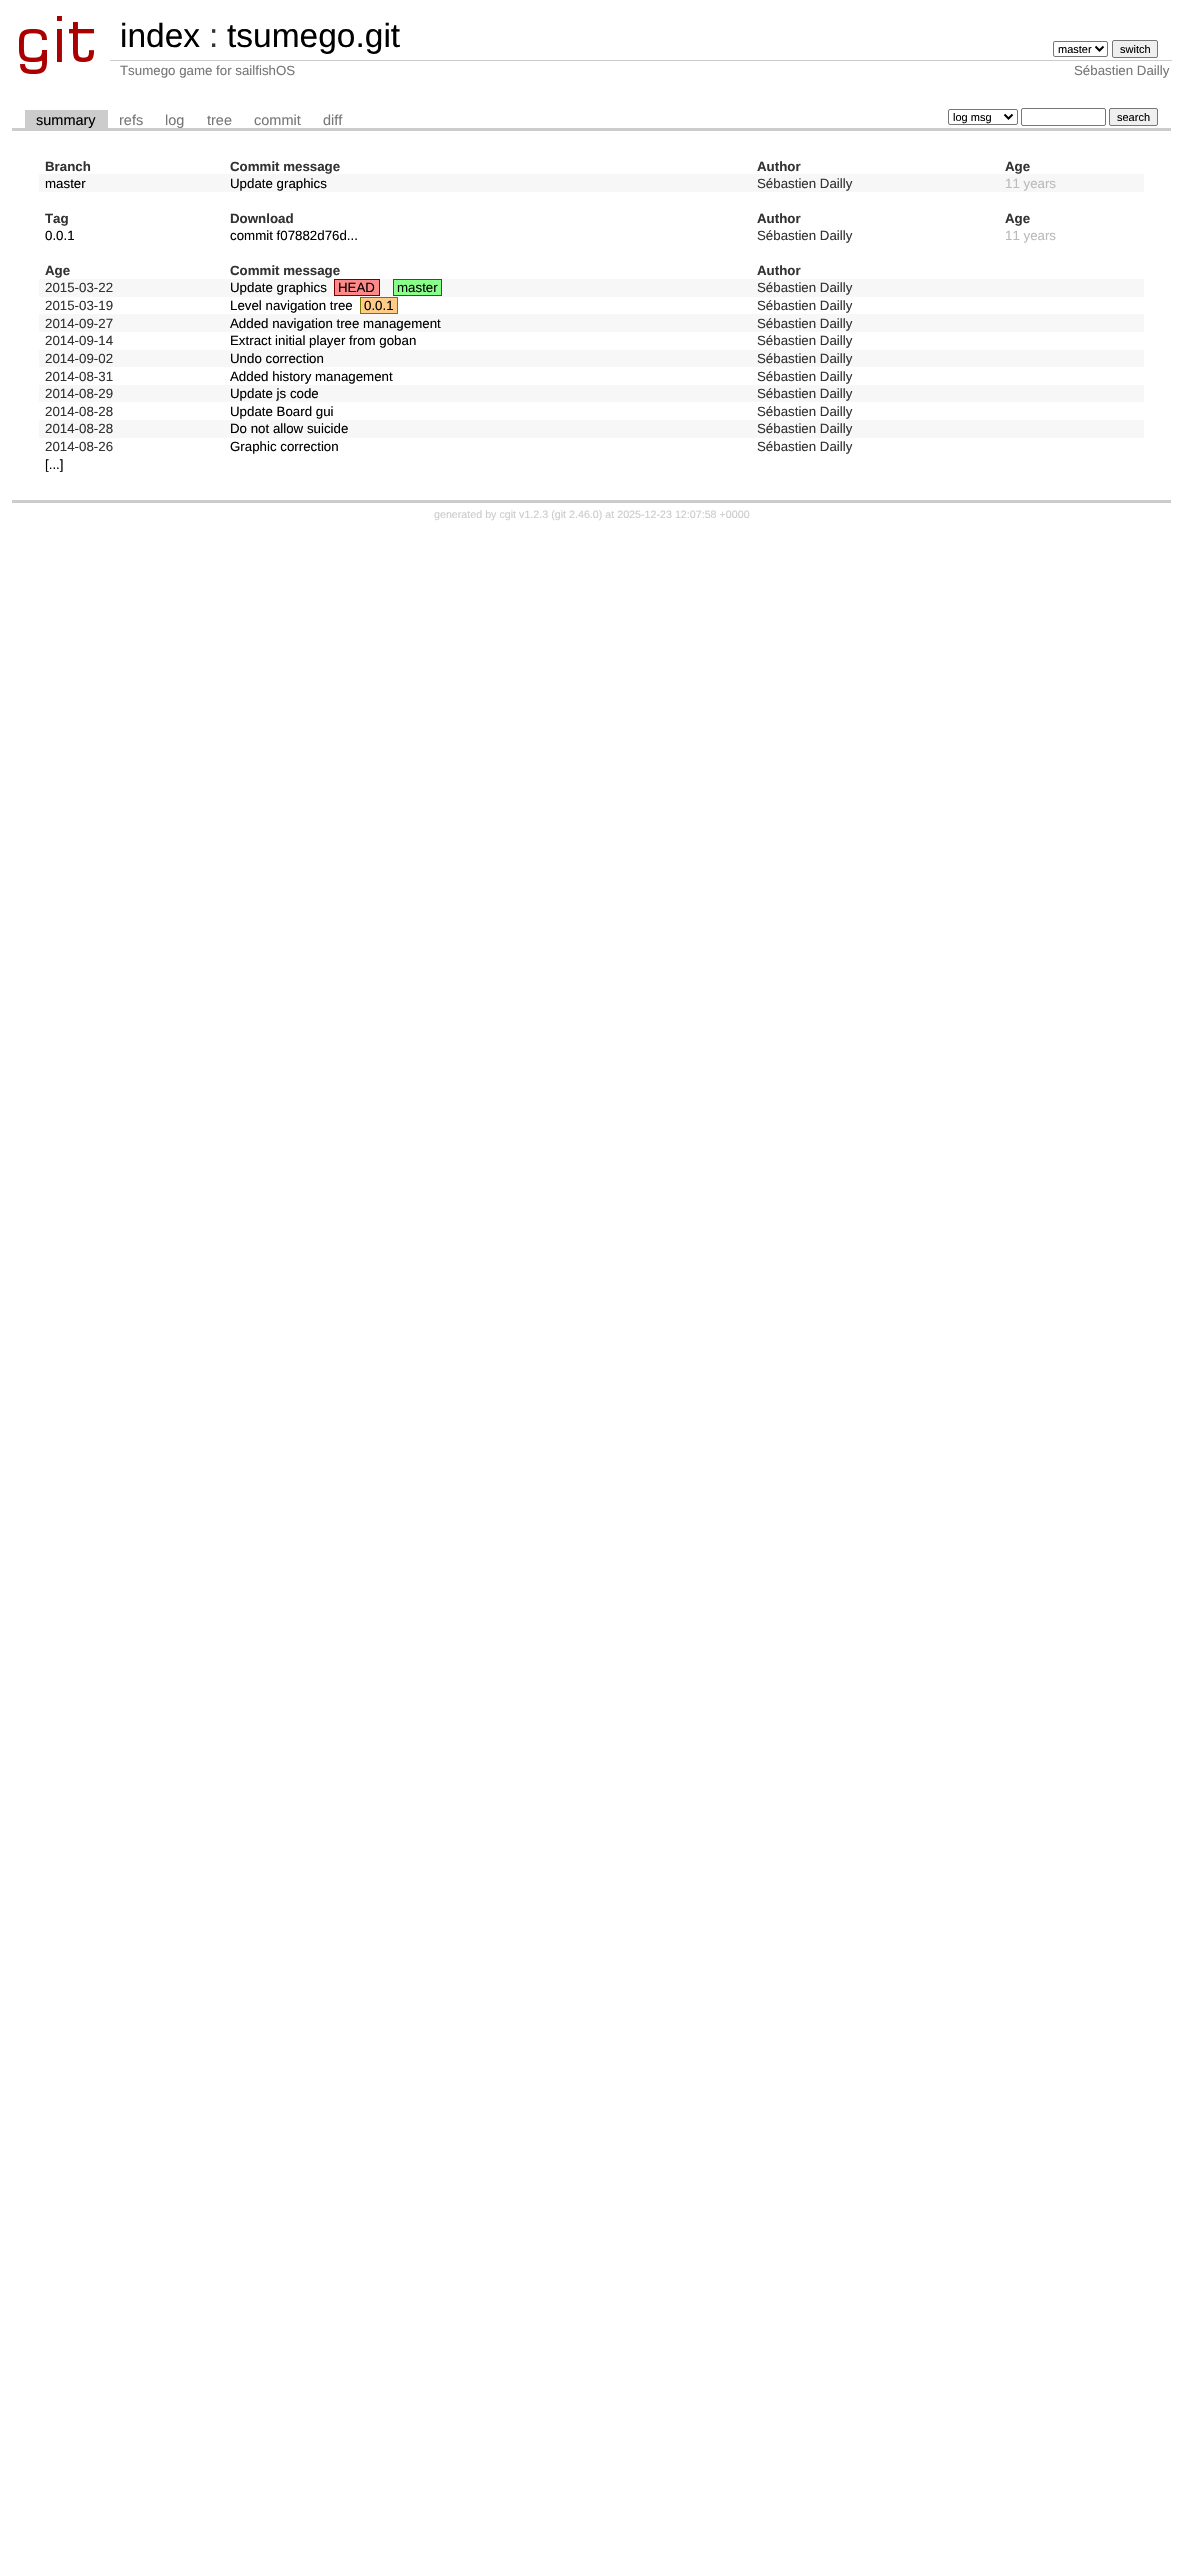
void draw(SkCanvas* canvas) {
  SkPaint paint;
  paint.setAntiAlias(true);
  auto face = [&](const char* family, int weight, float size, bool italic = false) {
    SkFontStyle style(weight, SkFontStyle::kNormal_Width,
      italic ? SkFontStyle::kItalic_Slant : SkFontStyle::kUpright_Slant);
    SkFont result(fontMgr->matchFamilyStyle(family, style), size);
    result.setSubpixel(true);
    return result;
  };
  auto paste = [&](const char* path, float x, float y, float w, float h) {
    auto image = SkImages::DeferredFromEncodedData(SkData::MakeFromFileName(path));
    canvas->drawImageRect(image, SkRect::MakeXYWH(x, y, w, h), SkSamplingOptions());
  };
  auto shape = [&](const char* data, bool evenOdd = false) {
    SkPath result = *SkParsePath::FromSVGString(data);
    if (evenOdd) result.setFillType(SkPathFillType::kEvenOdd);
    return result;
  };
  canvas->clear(0xffffffff);
  paste("img/1.png", 19, 16, 75, 58);
  paint.setStroke(true);
  paint.setStrokeWidth(1);
  paint.setColor(0xff767676);
  canvas->drawRoundRect(SkRect::MakeXYWH(1053.5f, 41.5f, 54, 15), 1.5f, 1.5f, paint);
  paint.setStrokeWidth(2);
  paint.setColor(0xff000000);
  canvas->drawPath(shape("M1095.5 46.5L1099.5 50.5L1103.5 46.5"), paint);
  paint.setStroke(false);
  paint.setColor(0xffefefef);
  canvas->drawRoundRect(SkRect::MakeXYWH(1112.5f, 40.5f, 45, 17), 1.5f, 1.5f, paint);
  paint.setStroke(true);
  paint.setStrokeWidth(1);
  paint.setColor(0xff767676);
  canvas->drawRoundRect(SkRect::MakeXYWH(1112.5f, 40.5f, 45, 17), 1.5f, 1.5f, paint);
  paint.setStroke(false);
  {
    const struct { float x, y, w, h; SkColor color; } items[] = {
      {110, 60, 1062, 1, 0xffcccccc},
      {12, 128, 1159, 3, 0xffcccccc},
      {25, 110, 83, 18, 0xffcccccc},
    };
    for (auto [x, y, w, h, color] : items) {
      paint.setColor(color);
      canvas->drawRect(SkRect::MakeXYWH(x, y, w, h), paint);
    }
  }
  paint.setStroke(true);
  paint.setColor(0xff767676);
  canvas->drawRoundRect(SkRect::MakeXYWH(948.5f, 109.5f, 69, 15), 1.5f, 1.5f, paint);
  paint.setStrokeWidth(2);
  paint.setColor(0xff000000);
  canvas->drawPath(shape("M1004.5 114.5L1008.5 118.5L1012.5 114.5"), paint);
  paint.setStrokeWidth(1);
  paint.setColor(0xff767676);
  canvas->drawRoundRect(SkRect::MakeXYWH(1021.5f, 108.5f, 84, 17), 1.5f, 1.5f, paint);
  paint.setStroke(false);
  paint.setColor(0xffefefef);
  canvas->drawRoundRect(SkRect::MakeXYWH(1109.5f, 108.5f, 48, 17), 1.5f, 1.5f, paint);
  paint.setStroke(true);
  paint.setColor(0xff767676);
  canvas->drawRoundRect(SkRect::MakeXYWH(1109.5f, 108.5f, 48, 17), 1.5f, 1.5f, paint);
  paint.setStroke(false);
  {
    const struct { float x, y, w, h; SkColor color; } items[] = {
      {12, 500, 1159, 3, 0xffcccccc},
      {39, 174, 1105, 18, 0xfff7f7f7},
      {39, 279, 1105, 18, 0xfff7f7f7},
    };
    for (auto [x, y, w, h, color] : items) {
      paint.setColor(color);
      canvas->drawRect(SkRect::MakeXYWH(x, y, w, h), paint);
    }
  }
  paint.setColor(0xffff8888);
  canvas->drawRect(SkRect::MakeXYWH(334.5f, 279.5f, 45, 16), paint);
  paint.setStroke(true);
  paint.setColor(0xff770000);
  canvas->drawRect(SkRect::MakeXYWH(334.5f, 279.5f, 45, 16), paint);
  paint.setStroke(false);
  paint.setColor(0xff88ff88);
  canvas->drawRect(SkRect::MakeXYWH(393.5f, 279.5f, 48, 16), paint);
  paint.setStroke(true);
  paint.setColor(0xff007700);
  canvas->drawRect(SkRect::MakeXYWH(393.5f, 279.5f, 48, 16), paint);
  paint.setStroke(false);
  paint.setColor(0xffffcc88);
  canvas->drawRect(SkRect::MakeXYWH(360.5f, 297.5f, 37, 16), paint);
  paint.setStroke(true);
  paint.setColor(0xff777700);
  canvas->drawRect(SkRect::MakeXYWH(360.5f, 297.5f, 37, 16), paint);
  paint.setStroke(false);
  {
    const struct { float x, y, w, h; SkColor color; } items[] = {
      {39, 314, 1105, 18, 0xfff7f7f7},
      {39, 350, 1105, 17, 0xfff7f7f7},
      {39, 385, 1105, 17, 0xfff7f7f7},
      {39, 420, 1105, 18, 0xfff7f7f7},
    };
    for (auto [x, y, w, h, color] : items) {
      paint.setColor(color);
      canvas->drawRect(SkRect::MakeXYWH(x, y, w, h), paint);
    }
  }
  auto f0 = face("Liberation Sans", 400, 33.5f);
  paint.setColor(0xff000000);
  canvas->drawString("index", 120, 47, f0, paint);
  paint.setColor(0xff333333);
  canvas->drawString(":", 209, 47, f0, paint);
  paint.setColor(0xff000000);
  canvas->drawString("tsumego.git", 227, 47, f0, paint);
  auto f1 = face("Liberation Sans", 400, 11);
  canvas->drawString("master", 1058, 53, f1, paint);
  canvas->drawString("switch", 1120, 53, f1, paint);
  auto f2 = face("Liberation Sans", 400, 13.3f);
  paint.setColor(0xff777777);
  canvas->drawString("Tsumego game for sailfishOS", 120, 75, f2, paint);
  canvas->drawString("Sébastien Dailly", 1074, 75, f2, paint);
  auto f3 = face("Liberation Sans", 400, 14.5f);
  paint.setColor(0xff000000);
  canvas->drawString("summary", 36, 125, f3, paint);
  paint.setColor(0xff777777);
  {
    const struct { const char* s; float x, y; } items[] = {
      {"refs", 119, 125},
      {"log", 165, 125},
      {"tree", 207, 125},
      {"commit", 254, 125},
      {"diff", 323, 125},
    };
    for (auto [s, x, y] : items) {
      canvas->drawString(s, x, y, f3, paint);
    }
  }
  paint.setColor(0xff000000);
  canvas->drawString("log msg", 953, 121, f1, paint);
  canvas->drawString("search", 1117, 121, f1, paint);
  auto f4 = face("Liberation Sans", 700, 13.3f);
  paint.setColor(0xff333333);
  {
    const struct { const char* s; float x, y; } items[] = {
      {"Branch", 45, 171},
      {"Commit message", 230, 171},
      {"Author", 757, 171},
      {"Age", 1005, 171},
    };
    for (auto [s, x, y] : items) {
      canvas->drawString(s, x, y, f4, paint);
    }
  }
  paint.setColor(0xff000000);
  canvas->drawString("master", 45, 188, f2, paint);
  canvas->drawString("Update graphics", 230, 188, f2, paint);
  paint.setColor(0xff333333);
  canvas->drawString("Sébastien Dailly", 757, 188, f2, paint);
  paint.setColor(0xffbbbbbb);
  canvas->drawString("11 years", 1005, 188, f2, paint);
  paint.setColor(0xff333333);
  {
    const struct { const char* s; float x, y; } items[] = {
      {"Tag", 45, 223},
      {"Download", 230, 223},
      {"Author", 757, 223},
      {"Age", 1005, 223},
    };
    for (auto [s, x, y] : items) {
      canvas->drawString(s, x, y, f4, paint);
    }
  }
  paint.setColor(0xff000000);
  canvas->drawString("0.0.1", 45, 240, f2, paint);
  canvas->drawString("commit f07882d76d...", 230, 240, f2, paint);
  paint.setColor(0xff333333);
  canvas->drawString("Sébastien Dailly", 757, 240, f2, paint);
  paint.setColor(0xffbbbbbb);
  canvas->drawString("11 years", 1005, 240, f2, paint);
  paint.setColor(0xff333333);
  {
    const struct { const char* s; float x, y; } items[] = {
      {"Age", 45, 275},
      {"Commit message", 230, 275},
      {"Author", 757, 275},
    };
    for (auto [s, x, y] : items) {
      canvas->drawString(s, x, y, f4, paint);
    }
  }
  canvas->drawString("2015-03-22", 45, 292, f2, paint);
  paint.setColor(0xff000000);
  {
    const struct { const char* s; float x, y; } items[] = {
      {"Update graphics", 230, 292},
      {"HEAD", 338, 292},
      {"master", 397, 292},
    };
    for (auto [s, x, y] : items) {
      canvas->drawString(s, x, y, f2, paint);
    }
  }
  paint.setColor(0xff333333);
  canvas->drawString("Sébastien Dailly", 757, 292, f2, paint);
  canvas->drawString("2015-03-19", 45, 310, f2, paint);
  paint.setColor(0xff000000);
  canvas->drawString("Level navigation tree", 230, 310, f2, paint);
  canvas->drawString("0.0.1", 364, 310, f2, paint);
  paint.setColor(0xff333333);
  canvas->drawString("Sébastien Dailly", 757, 310, f2, paint);
  canvas->drawString("2014-09-27", 45, 328, f2, paint);
  paint.setColor(0xff000000);
  canvas->drawString("Added navigation tree management", 230, 328, f2, paint);
  paint.setColor(0xff333333);
  canvas->drawString("Sébastien Dailly", 757, 328, f2, paint);
  canvas->drawString("2014-09-14", 45, 345, f2, paint);
  paint.setColor(0xff000000);
  canvas->drawString("Extract initial player from goban", 230, 345, f2, paint);
  paint.setColor(0xff333333);
  canvas->drawString("Sébastien Dailly", 757, 345, f2, paint);
  canvas->drawString("2014-09-02", 45, 363, f2, paint);
  paint.setColor(0xff000000);
  canvas->drawString("Undo correction", 230, 363, f2, paint);
  paint.setColor(0xff333333);
  canvas->drawString("Sébastien Dailly", 757, 363, f2, paint);
  canvas->drawString("2014-08-31", 45, 381, f2, paint);
  paint.setColor(0xff000000);
  canvas->drawString("Added history management", 230, 381, f2, paint);
  paint.setColor(0xff333333);
  canvas->drawString("Sébastien Dailly", 757, 381, f2, paint);
  canvas->drawString("2014-08-29", 45, 398, f2, paint);
  paint.setColor(0xff000000);
  canvas->drawString("Update js code", 230, 398, f2, paint);
  paint.setColor(0xff333333);
  canvas->drawString("Sébastien Dailly", 757, 398, f2, paint);
  canvas->drawString("2014-08-28", 45, 416, f2, paint);
  paint.setColor(0xff000000);
  canvas->drawString("Update Board gui", 230, 416, f2, paint);
  paint.setColor(0xff333333);
  canvas->drawString("Sébastien Dailly", 757, 416, f2, paint);
  canvas->drawString("2014-08-28", 45, 433, f2, paint);
  paint.setColor(0xff000000);
  canvas->drawString("Do not allow suicide", 230, 433, f2, paint);
  paint.setColor(0xff333333);
  canvas->drawString("Sébastien Dailly", 757, 433, f2, paint);
  canvas->drawString("2014-08-26", 45, 451, f2, paint);
  paint.setColor(0xff000000);
  canvas->drawString("Graphic correction", 230, 451, f2, paint);
  paint.setColor(0xff333333);
  canvas->drawString("Sébastien Dailly", 757, 451, f2, paint);
  paint.setColor(0xff000000);
  canvas->drawString("[...]", 45, 469, f2, paint);
  auto f5 = face("Liberation Sans", 400, 10.7f);
  paint.setColor(0xffcccccc);
  canvas->drawString("generated by cgit v1.2.3 (git 2.46.0) at 2025-12-23 12:07:58 +0000", 434, 518, f5, paint);
}
